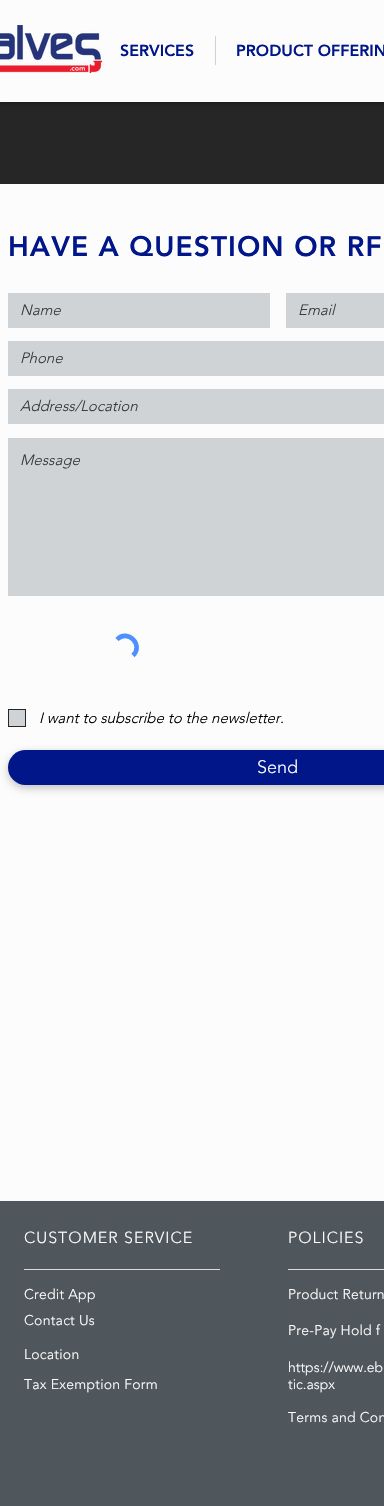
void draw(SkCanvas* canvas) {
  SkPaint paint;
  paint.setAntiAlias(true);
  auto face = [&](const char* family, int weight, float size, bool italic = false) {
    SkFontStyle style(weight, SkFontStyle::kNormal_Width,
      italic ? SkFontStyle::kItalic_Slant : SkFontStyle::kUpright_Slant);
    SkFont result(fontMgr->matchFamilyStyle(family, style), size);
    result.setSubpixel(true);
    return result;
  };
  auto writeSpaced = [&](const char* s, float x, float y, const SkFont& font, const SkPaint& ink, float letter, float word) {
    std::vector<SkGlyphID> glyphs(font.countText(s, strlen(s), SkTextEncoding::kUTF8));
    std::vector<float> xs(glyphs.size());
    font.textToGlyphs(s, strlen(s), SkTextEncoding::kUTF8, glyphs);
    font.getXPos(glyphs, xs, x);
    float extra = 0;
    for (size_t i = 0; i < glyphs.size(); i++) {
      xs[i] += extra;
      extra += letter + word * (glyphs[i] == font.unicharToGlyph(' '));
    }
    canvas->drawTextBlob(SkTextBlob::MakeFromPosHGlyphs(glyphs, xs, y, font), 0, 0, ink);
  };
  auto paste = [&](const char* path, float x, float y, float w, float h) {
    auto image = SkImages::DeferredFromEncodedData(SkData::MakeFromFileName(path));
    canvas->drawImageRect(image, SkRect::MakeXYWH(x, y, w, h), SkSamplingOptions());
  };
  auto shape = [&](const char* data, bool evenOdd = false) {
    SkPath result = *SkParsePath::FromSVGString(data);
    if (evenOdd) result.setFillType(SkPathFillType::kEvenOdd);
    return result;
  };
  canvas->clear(0xff262626);
  paint.setColor(0x80000000);
  paint.setMaskFilter(SkMaskFilter::MakeBlur(kNormal_SkBlurStyle, 2.5f));
  canvas->drawRect(SkRect::MakeXYWH(0, 0, 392, 102), paint);
  paint.setMaskFilter(nullptr);
  paint.setColor(0xfffcfcfc);
  canvas->drawRect(SkRect::MakeXYWH(0, 0, 384, 102), paint);
  paste("img/1.png", 0, 25, 102, 48);
  {
    const struct { float x, y, w, h; SkColor color; } items[] = {
      {215, 36, 1, 29, 0xffcfd3d6},
      {0, 184, 384, 1017, 0xfffcfcfc},
      {8, 293, 262, 35, 0xffcfd3d6},
      {286, 293, 98, 35, 0xffcfd3d6},
      {8, 341, 376, 35, 0xffcfd3d6},
      {8, 389, 376, 35, 0xffcfd3d6},
      {8, 438, 376, 158, 0xffcfd3d6},
    };
    for (auto [x, y, w, h, color] : items) {
      paint.setColor(color);
      canvas->drawRect(SkRect::MakeXYWH(x, y, w, h), paint);
    }
  }
  paint.setStroke(true);
  paint.setStrokeWidth(4.6f);
  paint.setColor(0xff4d90fe);
  canvas->drawPath(shape("M117 639.5C127.5 628.5 144 645 133 655.5"), paint);
  paint.setStroke(false);
  paint.setColor(0xffcfd3d6);
  canvas->drawRect(SkRect::MakeXYWH(8.5f, 709.5f, 17, 17), paint);
  paint.setStroke(true);
  paint.setStrokeWidth(1);
  paint.setColor(0xff262626);
  canvas->drawRect(SkRect::MakeXYWH(8.5f, 709.5f, 17, 17), paint);
  paint.setStroke(false);
  paint.setColor(0x3b000000);
  paint.setMaskFilter(SkMaskFilter::MakeBlur(kNormal_SkBlurStyle, 4.5f));
  canvas->drawRoundRect(SkRect::MakeXYWH(8, 753, 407, 35), 17.5f, 17.5f, paint);
  paint.setMaskFilter(nullptr);
  paint.setColor(0xff001689);
  canvas->drawRoundRect(SkRect::MakeXYWH(8, 750, 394, 35), 17.5f, 17.5f, paint);
  {
    const struct { float x, y, w, h; SkColor color; } items[] = {
      {0, 1201, 384, 305, 0xff4f565c},
      {24, 1269, 196, 1, 0xffd9dbdc},
      {288, 1269, 96, 1, 0xffd9dbdc},
    };
    for (auto [x, y, w, h, color] : items) {
      paint.setColor(color);
      canvas->drawRect(SkRect::MakeXYWH(x, y, w, h), paint);
    }
  }
  auto f0 = face("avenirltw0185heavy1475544", 900, 16);
  paint.setColor(0xff001689);
  canvas->drawString("SERVICES", 120, 56, f0, paint);
  canvas->drawString("PRODUCT OFFERIN", 236, 56, f0, paint);
  auto f1 = face("avenirltw0185heavy1475544", 900, 28);
  writeSpaced("HAVE A QUESTION OR RF", 8, 256, f1, paint, 1.1f, 0);
  auto f2 = face("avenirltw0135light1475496", 300, 15, true);
  paint.setColor(0xff3b3b3b);
  {
    const struct { const char* s; float x, y; } items[] = {
      {"Name", 20, 315},
      {"Email", 298, 315},
      {"Phone", 20, 363},
      {"Address/Location", 20, 411},
      {"Message", 20, 465},
    };
    for (auto [s, x, y] : items) {
      canvas->drawString(s, x, y, f2, paint);
    }
  }
  paint.setColor(0xff000000);
  canvas->drawString("I want to subscribe to the newsletter.", 39, 723, f2, paint);
  auto f3 = face("avenirltw0135light1475496", 300, 18);
  paint.setColor(0xffffffff);
  canvas->drawString("Send", 257, 773, f3, paint);
  auto f4 = face("avenirltw0135light1475496", 300, 16);
  writeSpaced("CUSTOMER SERVICE", 24, 1243, f4, paint, 1, 0);
  writeSpaced("POLICIES", 288, 1243, f4, paint, 1, 0);
  auto f5 = face("avenirltw0135light1475496", 300, 14);
  {
    const struct { const char* s; float x, y; } items[] = {
      {"Credit App", 24, 1299},
      {"Product Return", 288, 1299},
      {"Contact Us", 24, 1325},
      {"Pre-Pay Hold f", 288, 1335},
      {"Location", 24, 1359},
      {"Tax Exemption Form", 24, 1389},
    };
    for (auto [s, x, y] : items) {
      writeSpaced(s, x, y, f5, paint, 0.25f, 0);
    }
  }
  canvas->drawString("https://www.eb", 288, 1372, f5, paint);
  canvas->drawString("tic.aspx", 288, 1389, f5, paint);
  writeSpaced("Terms and Con", 288, 1422, f5, paint, 0.25f, 0);
}
